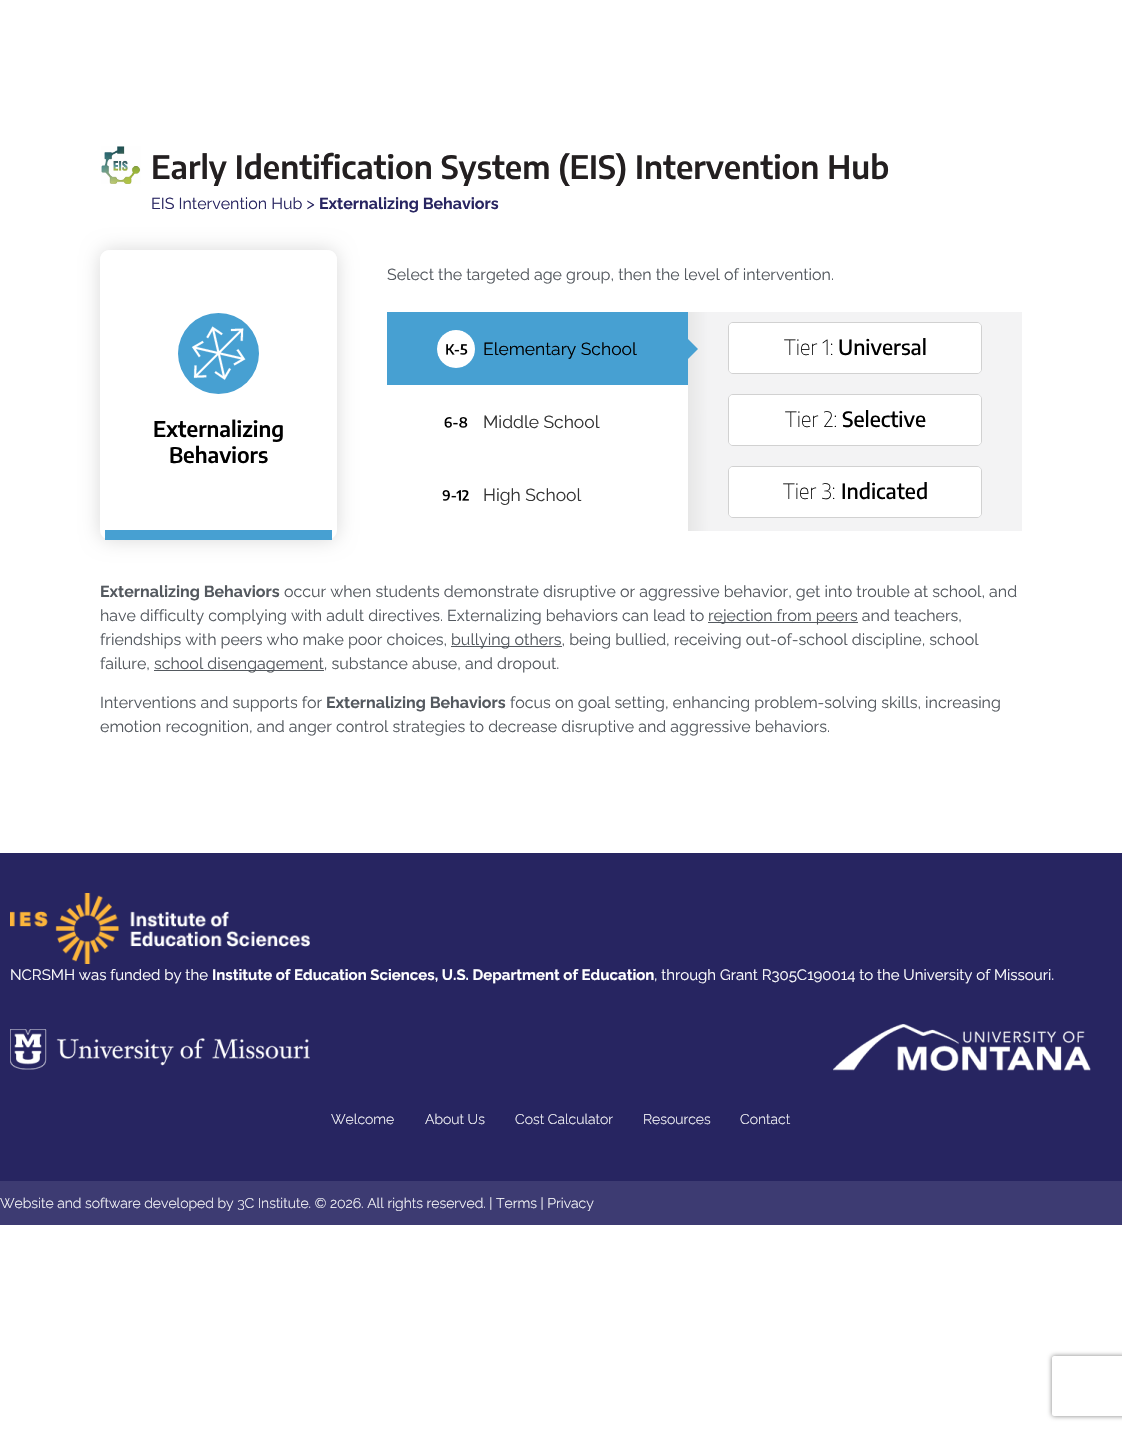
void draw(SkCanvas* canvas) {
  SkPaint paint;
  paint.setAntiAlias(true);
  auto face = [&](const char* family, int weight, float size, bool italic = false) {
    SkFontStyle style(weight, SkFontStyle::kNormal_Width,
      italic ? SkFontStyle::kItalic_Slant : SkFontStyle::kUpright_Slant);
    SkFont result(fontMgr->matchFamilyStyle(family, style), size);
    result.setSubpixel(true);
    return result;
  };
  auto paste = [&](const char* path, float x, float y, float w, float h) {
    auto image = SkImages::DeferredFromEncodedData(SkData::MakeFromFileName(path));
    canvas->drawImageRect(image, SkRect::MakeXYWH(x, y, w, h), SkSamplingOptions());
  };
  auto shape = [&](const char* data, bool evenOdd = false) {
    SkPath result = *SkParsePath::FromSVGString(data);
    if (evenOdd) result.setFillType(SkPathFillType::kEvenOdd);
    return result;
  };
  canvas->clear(0xffffffff);
  paste("img/1.png", 101, 146, 40, 38);
  canvas->save();
  canvas->clipPath(shape("M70 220H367V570H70ZM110 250H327C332.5 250 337 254.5 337 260V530C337 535.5 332.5 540 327 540H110C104.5 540 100 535.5 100 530V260C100 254.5 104.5 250 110 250Z", true), true);
  paint.setColor(0x26000000);
  paint.setMaskFilter(SkMaskFilter::MakeBlur(kNormal_SkBlurStyle, 9.5f));
  canvas->drawRoundRect(SkRect::MakeXYWH(100, 250, 237, 290), 10, 10, paint);
  paint.setMaskFilter(nullptr);
  canvas->restore();
  paint.setColor(0xff47a0d2);
  canvas->drawRect(SkRect::MakeXYWH(105, 530, 227, 10), paint);
  paint.setColor(0xffffffff);
  canvas->drawPath(shape("M110 250C104 250 100 254 100 260V530H337V260C337 254 333 250 327 250Z"), paint);
  paste("img/2.png", 178, 313, 81, 81);
  paint.setColor(0xff47a0d2);
  canvas->drawRect(SkRect::MakeXYWH(387, 312, 301, 73), paint);
  paste("img/3.png", 437, 330, 38, 38);
  {
    const SkColor colors[] = {0xfff3f3f4, 0xffe7e7e7};
    const float stops[] = {0.94f, 1};
    const SkPoint ends[] = {{1022, 421}, {688, 422}};
    paint.setShader(SkGradientShader::MakeLinear(ends, colors, stops, 2, SkTileMode::kClamp));
    paint.setAlpha(255);
  }
  canvas->drawRect(SkRect::MakeXYWH(688, 312, 334, 219), paint);
  paint.setShader(nullptr);
  paint.setColor(0xff47a0d2);
  canvas->drawPath(shape("M688 359V339L698 349Z"), paint);
  paste("img/4.png", 444, 417, 24, 11);
  paste("img/5.png", 442, 490, 27, 11);
  paint.setStroke(true);
  paint.setStrokeWidth(1);
  paint.setColor(0xffd1d1d1);
  canvas->drawRoundRect(SkRect::MakeXYWH(728.5f, 322.5f, 253, 51), 4.5f, 4.5f, paint);
  paint.setStroke(false);
  paint.setColor(0xffffffff);
  canvas->drawRoundRect(SkRect::MakeXYWH(729, 323, 252, 50), 4, 4, paint);
  paint.setStroke(true);
  paint.setColor(0xffd1d1d1);
  canvas->drawRoundRect(SkRect::MakeXYWH(728.5f, 394.5f, 253, 51), 4.5f, 4.5f, paint);
  paint.setStroke(false);
  paint.setColor(0xffffffff);
  canvas->drawRoundRect(SkRect::MakeXYWH(729, 395, 252, 50), 4, 4, paint);
  paint.setStroke(true);
  paint.setColor(0xffd1d1d1);
  canvas->drawRoundRect(SkRect::MakeXYWH(728.5f, 466.5f, 253, 51), 4.5f, 4.5f, paint);
  paint.setStroke(false);
  paint.setColor(0xffffffff);
  canvas->drawRoundRect(SkRect::MakeXYWH(729, 467, 252, 50), 4, 4, paint);
  {
    const struct { float x, y, w, h; SkColor color; } items[] = {
      {708, 622, 150, 1, 0xff54595f},
      {451, 646, 111, 1, 0xff54595f},
      {154, 670, 170, 1, 0xff54595f},
      {0, 853, 1122, 328, 0xff272561},
    };
    for (auto [x, y, w, h, color] : items) {
      paint.setColor(color);
      canvas->drawRect(SkRect::MakeXYWH(x, y, w, h), paint);
    }
  }
  paste("img/6.png", 10, 893, 300, 71);
  paste("img/7.png", 10, 1029, 300, 41);
  paste("img/8.png", 833, 1024, 258, 47);
  paint.setColor(0xff3d3b72);
  canvas->drawRect(SkRect::MakeXYWH(0, 1181, 1122, 44), paint);
  canvas->save();
  canvas->clipPath(shape("M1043 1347H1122V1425H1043ZM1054 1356H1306C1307 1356 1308 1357 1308 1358V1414C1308 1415 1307 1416 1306 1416H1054C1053 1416 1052 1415 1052 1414V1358C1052 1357 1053 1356 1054 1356Z", true), true);
  paint.setColor(0xff808080);
  paint.setMaskFilter(SkMaskFilter::MakeBlur(kNormal_SkBlurStyle, 2.5f));
  canvas->drawRoundRect(SkRect::MakeXYWH(1052, 1356, 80, 60), 2, 2, paint);
  paint.setMaskFilter(nullptr);
  canvas->restore();
  auto f0 = face("Encode Sans Condensed", 600, 32);
  paint.setColor(0xff231f20);
  canvas->drawString("Early Identification System (EIS) Intervention Hub", 151, 179, f0, paint);
  auto f1 = face("Raleway", 400, 16);
  paint.setColor(0xff282561);
  canvas->drawString("EIS Intervention Hub >", 151, 209, f1, paint);
  auto f2 = face("Raleway", 700, 16);
  canvas->drawString("Externalizing Behaviors", 319, 209, f2, paint);
  auto f3 = face("Encode Sans Condensed", 600, 21.5f);
  paint.setColor(0xff000000);
  canvas->drawString("Externalizing", 153, 437, f3, paint);
  canvas->drawString("Behaviors", 169, 463, f3, paint);
  paint.setColor(0xff54595f);
  canvas->drawString("Select the targeted age group, then the level of intervention.", 387, 280, f1, paint);
  auto f4 = face("Raleway", 400, 17.5f);
  paint.setColor(0xff000000);
  canvas->drawString("Elementary School", 483, 355, f4, paint);
  paint.setColor(0xff333333);
  canvas->drawString("Middle School", 483, 428, f4, paint);
  canvas->drawString("High School", 483, 501, f4, paint);
  auto f5 = face("Encode Sans Condensed", 100, 21);
  paint.setColor(0xff000000);
  canvas->drawString("Tier 1:", 784, 355, f5, paint);
  auto f6 = face("Encode Sans Condensed", 500, 21);
  canvas->drawString("Universal", 838, 355, f6, paint);
  canvas->drawString("Tier 2:", 785, 427, f5, paint);
  canvas->drawString("Selective", 842, 427, f6, paint);
  canvas->drawString("Tier 3:", 783, 499, f5, paint);
  canvas->drawString("Indicated", 841, 499, f6, paint);
  paint.setColor(0xff54595f);
  canvas->drawString("Externalizing Behaviors", 100, 597, f2, paint);
  {
    const struct { const char* s; float x, y; } items[] = {
      {"occur when students demonstrate disruptive or aggressive behavior, get into trouble at school, and", 284, 597},
      {"have difficulty complying with adult directives. Externalizing behaviors can lead to", 100, 621},
      {"rejection from peers and teachers,", 708, 621},
      {"friendships with peers who make poor choices,", 100, 645},
      {"bullying others, being bullied, receiving out-of-school discipline, school", 451, 645},
      {"failure,", 100, 669},
      {"school disengagement, substance abuse, and dropout.", 154, 669},
      {"Interventions and supports for", 100, 708},
    };
    for (auto [s, x, y] : items) {
      canvas->drawString(s, x, y, f1, paint);
    }
  }
  canvas->drawString("Externalizing Behaviors", 326, 708, f2, paint);
  canvas->drawString("focus on goal setting, enhancing problem-solving skills, increasing", 510, 708, f1, paint);
  canvas->drawString("emotion recognition, and anger control strategies to decrease disruptive and aggressive behaviors.", 100, 732, f1, paint);
  auto f7 = face("Raleway", 400, 15);
  paint.setColor(0xffffffff);
  canvas->drawString("NCRSMH was funded by the", 10, 980, f7, paint);
  auto f8 = face("Raleway", 700, 15);
  canvas->drawString("Institute of Education Sciences, U.S. Department of Education", 212, 980, f8, paint);
  canvas->drawString(", through Grant R305C190014 to the University of Missouri.", 654, 980, f7, paint);
  auto f9 = face("Raleway", 300, 14);
  {
    const struct { const char* s; float x, y; } items[] = {
      {"Welcome", 331, 1124},
      {"About Us", 425, 1124},
      {"Cost Calculator", 515, 1124},
      {"Resources", 643, 1124},
      {"Contact", 740, 1124},
      {"Website and software developed by 3C Institute. © 2026. All rights reserved. | Terms | Privacy", 0, 1208},
    };
    for (auto [s, x, y] : items) {
      canvas->drawString(s, x, y, f9, paint);
    }
  }
}
